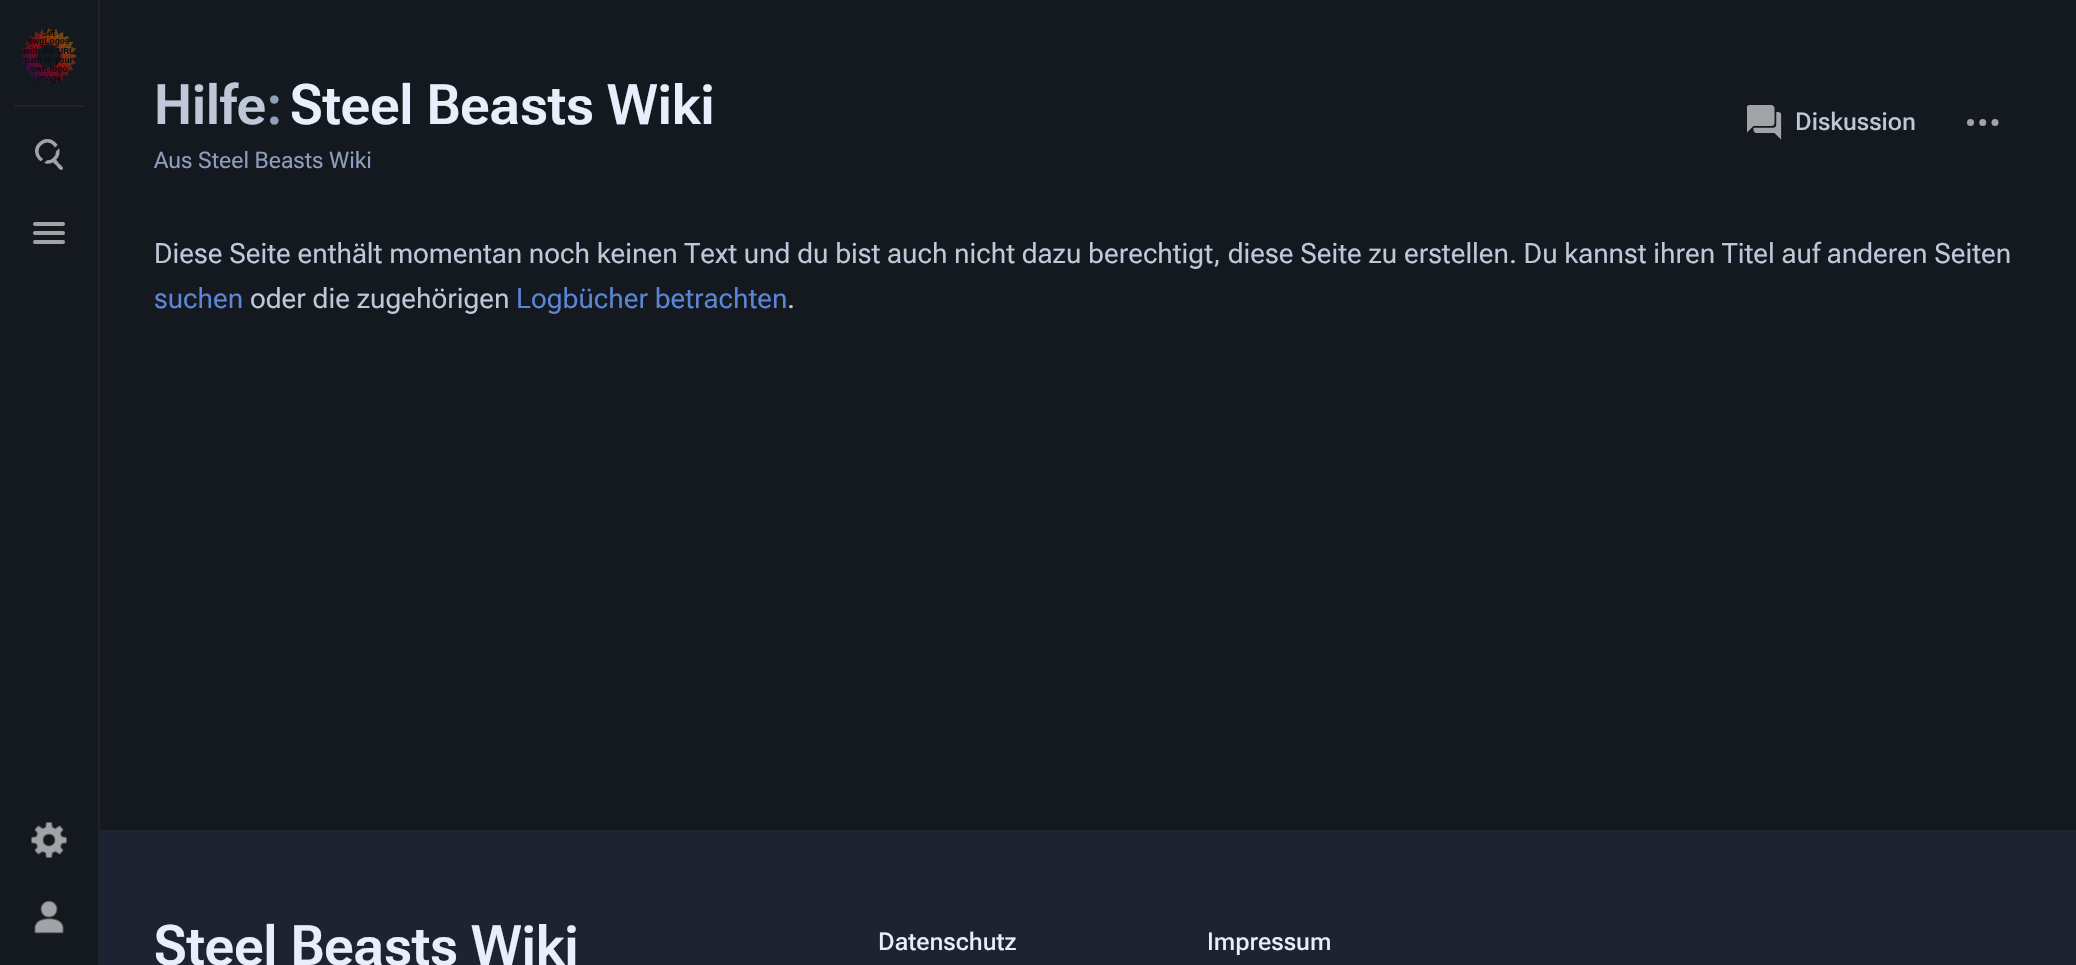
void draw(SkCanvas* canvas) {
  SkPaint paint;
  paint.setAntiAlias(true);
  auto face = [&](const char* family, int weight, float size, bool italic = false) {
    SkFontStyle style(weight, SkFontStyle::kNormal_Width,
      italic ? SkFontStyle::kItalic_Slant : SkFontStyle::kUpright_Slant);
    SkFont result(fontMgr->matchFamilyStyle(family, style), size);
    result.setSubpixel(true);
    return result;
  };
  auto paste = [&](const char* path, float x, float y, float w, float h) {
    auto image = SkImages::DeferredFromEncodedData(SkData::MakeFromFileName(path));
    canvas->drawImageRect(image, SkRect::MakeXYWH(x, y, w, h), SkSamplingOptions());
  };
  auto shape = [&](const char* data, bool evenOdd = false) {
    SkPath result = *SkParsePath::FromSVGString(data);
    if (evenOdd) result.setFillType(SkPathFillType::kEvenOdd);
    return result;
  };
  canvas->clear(0xff14181f);
  paint.setColor(0xff20242a);
  canvas->drawRect(SkRect::MakeXYWH(98, 0, 2, 965), paint);
  canvas->drawRect(SkRect::MakeXYWH(14, 105, 70, 2), paint);
  paste("img/1.png", 21, 28, 56, 56);
  paint.setColor(0xffa1a3a5);
  canvas->drawPath(shape("M53 159.5C55 157.5 58 162 59 163.5C60 164.5 64.5 167.5 62.5 169.5C60.5 171.5 57.5 167 56.5 165.5C55.5 164.5 51 161.5 53 159.5Z"), paint);
  paint.setStroke(true);
  paint.setStrokeWidth(3.5f);
  canvas->drawPath(shape("M40 144C49.5 134 64.5 149 54.5 159C45 168.5 30 153.5 40 144Z"), paint);
  paint.setStroke(false);
  paint.setColor(0xff14181f);
  canvas->drawPath(shape("M39 165.5C38.5 165 38.5 164 39 163L56.5 146C57 145 58 145 59 146C59.5 146.5 59.5 147.5 59 148.5L41.5 165.5C41 166.5 40 166.5 39 165.5Z"), paint);
  paint.setColor(0xffa1a3a5);
  canvas->drawRoundRect(SkRect::MakeXYWH(33, 222, 32, 4), 2, 2, paint);
  canvas->drawRoundRect(SkRect::MakeXYWH(33, 231, 32, 4), 2, 2, paint);
  canvas->drawRoundRect(SkRect::MakeXYWH(33, 240, 32, 4), 2, 2, paint);
  paste("img/2.png", 31, 822, 36, 36);
  paste("img/3.png", 34, 900, 30, 34);
  paste("img/4.png", 1747, 105, 35, 35);
  paste("img/5.png", 1967, 119, 32, 7);
  paint.setColor(0xff1d2330);
  canvas->drawRect(SkRect::MakeXYWH(100, 830, 1976, 135), paint);
  auto f0 = face("Roboto Flex", 600, 56);
  paint.setColor(0xffbfc8d9);
  canvas->drawString("Hilfe", 154, 124, f0, paint);
  paint.setColor(0xff8f9ebc);
  canvas->drawString(":", 266, 124, f0, paint);
  paint.setColor(0xffe8effc);
  canvas->drawString("Steel Beasts Wiki", 290, 124, f0, paint);
  auto f1 = face("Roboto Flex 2", 400, 22.75f);
  paint.setColor(0xff8f9ebc);
  canvas->drawString("Aus Steel Beasts Wiki", 154, 168, f1, paint);
  auto f2 = face("Roboto Flex", 500, 24.5f);
  paint.setColor(0xffbfc8d9);
  canvas->drawString("Diskussion", 1795, 130, f2, paint);
  auto f3 = face("Roboto Flex", 400, 28);
  canvas->drawString("Diese Seite enthält momentan noch keinen Text und du bist auch nicht dazu berechtigt, diese Seite zu erstellen. Du kannst ihren Titel auf anderen Seiten", 154, 263, f3, paint);
  paint.setColor(0xff5c85d6);
  canvas->drawString("suchen", 154, 308, f3, paint);
  paint.setColor(0xffbfc8d9);
  canvas->drawString("oder die zugehörigen", 250, 308, f3, paint);
  paint.setColor(0xff5c85d6);
  canvas->drawString("Logbücher betrachten", 516, 308, f3, paint);
  paint.setColor(0xffbfc8d9);
  canvas->drawString(".", 787, 308, f3, paint);
  paint.setColor(0xffe8effc);
  canvas->drawString("Steel Beasts Wiki", 154, 965, f0, paint);
  canvas->drawString("Datenschutz", 878, 950, f2, paint);
  canvas->drawString("Impressum", 1207, 950, f2, paint);
}
